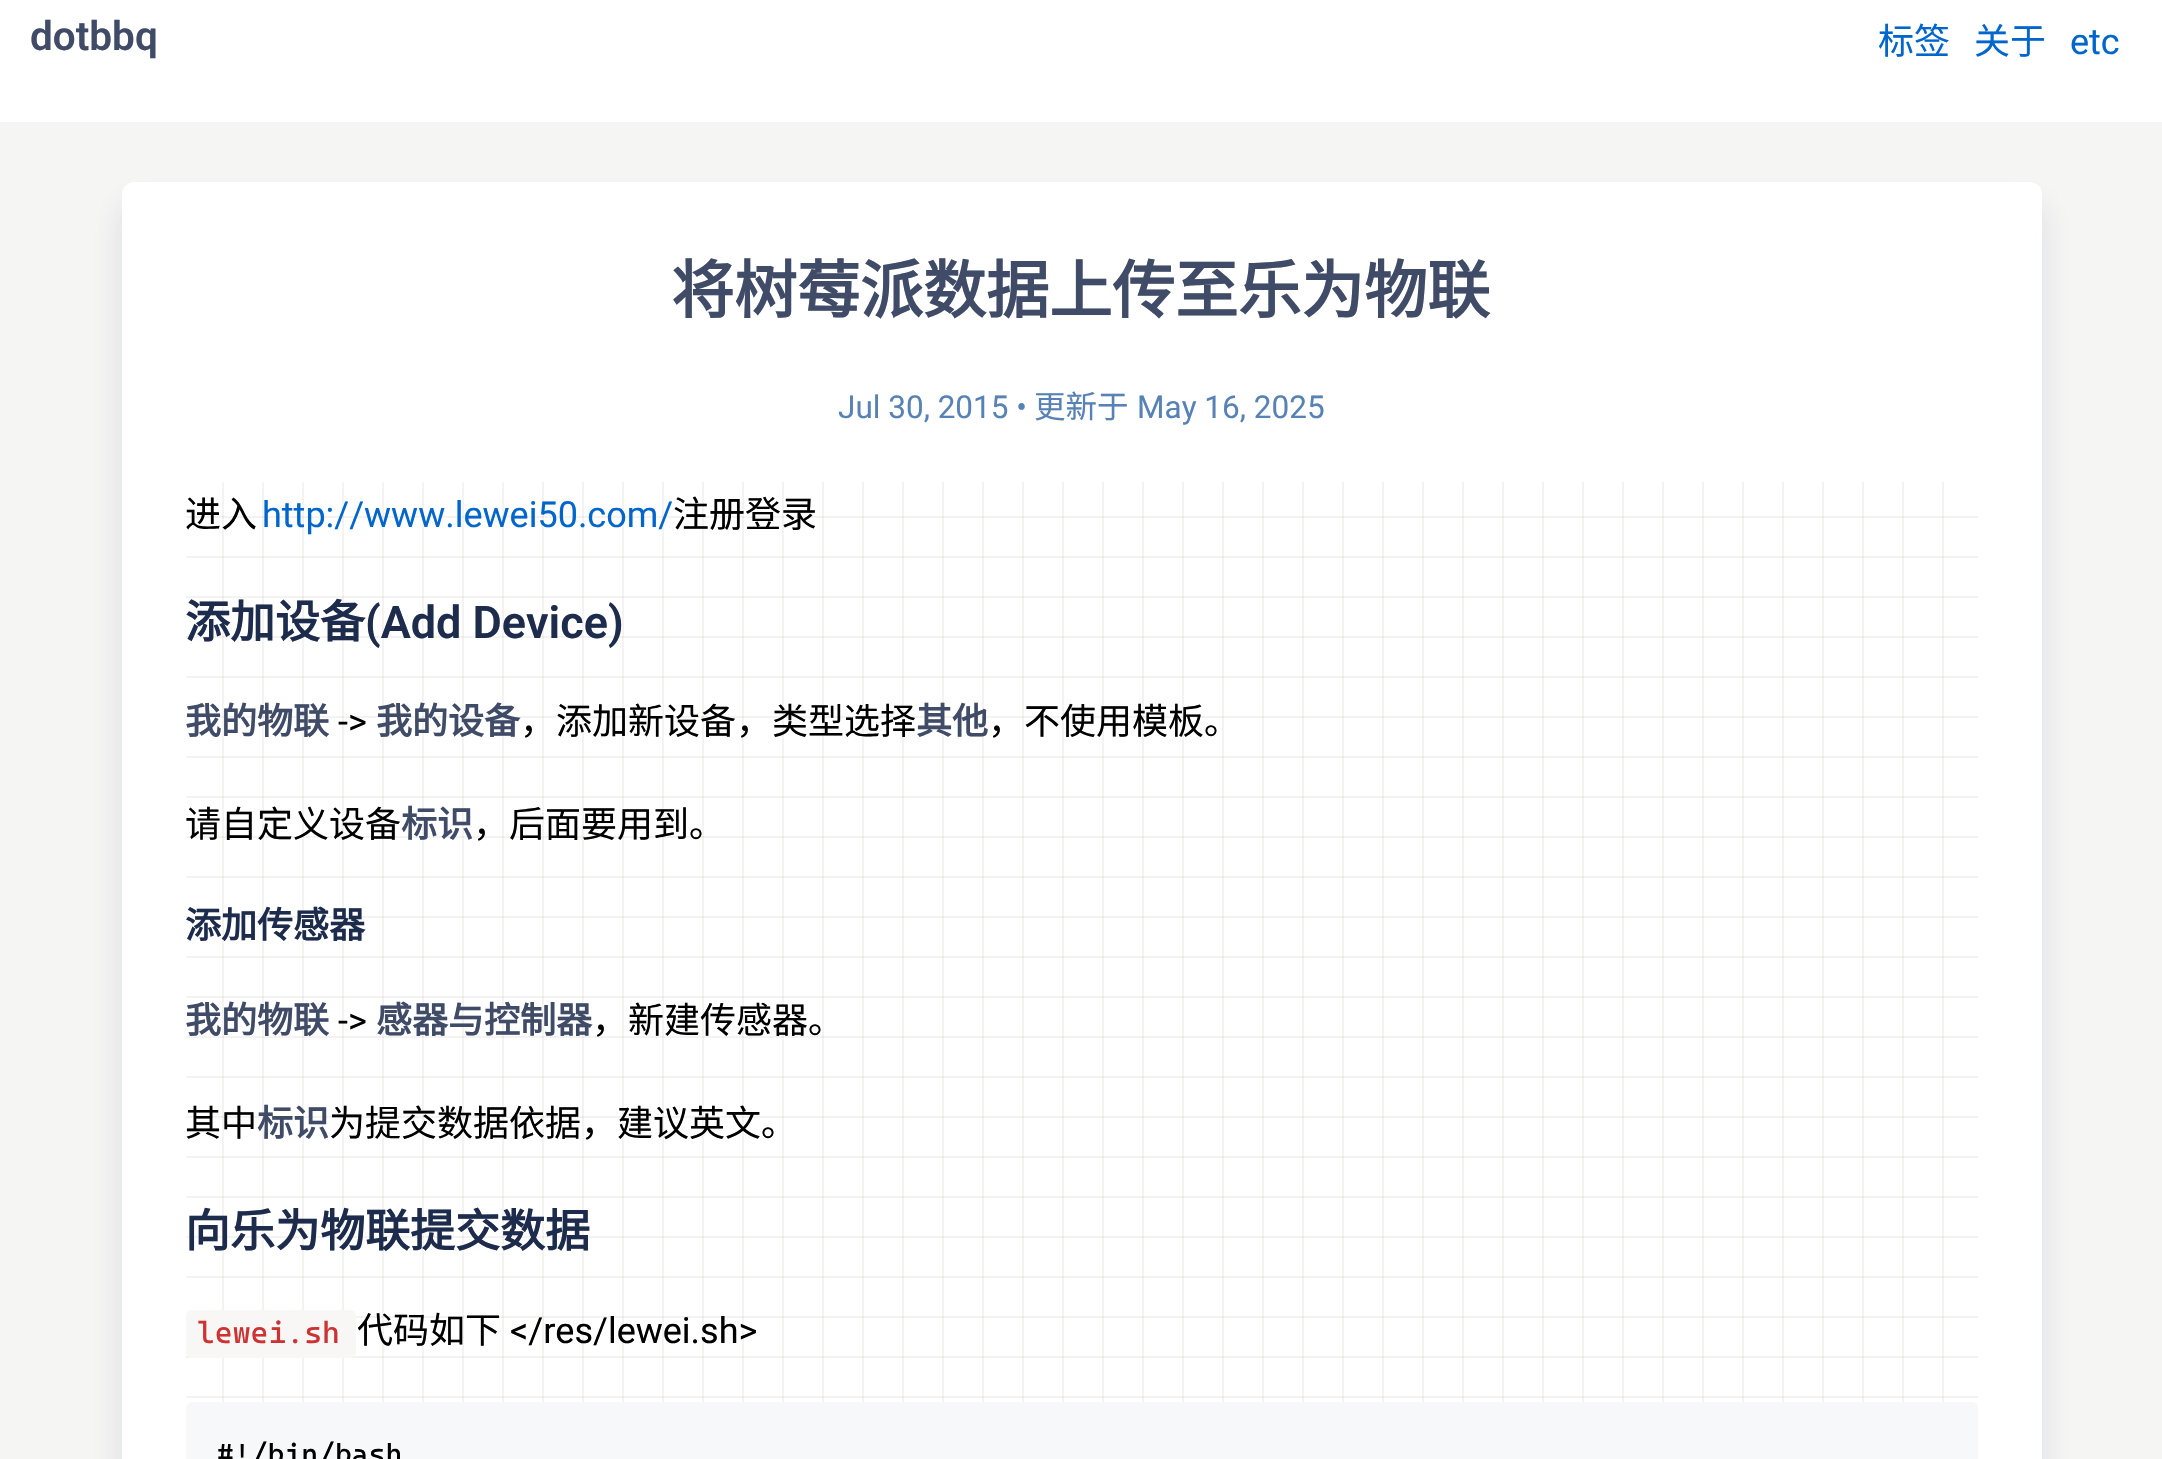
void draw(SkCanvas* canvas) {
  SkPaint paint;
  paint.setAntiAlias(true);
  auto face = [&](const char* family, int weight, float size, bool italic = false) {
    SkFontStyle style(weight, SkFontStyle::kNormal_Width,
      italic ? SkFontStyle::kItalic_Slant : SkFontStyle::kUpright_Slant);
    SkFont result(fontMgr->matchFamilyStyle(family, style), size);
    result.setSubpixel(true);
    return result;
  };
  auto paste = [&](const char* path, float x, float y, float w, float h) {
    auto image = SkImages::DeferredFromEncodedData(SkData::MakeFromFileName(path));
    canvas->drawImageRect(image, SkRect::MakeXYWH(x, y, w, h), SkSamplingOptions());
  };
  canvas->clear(0xfff5f5f4);
  paint.setColor(0xffffffff);
  canvas->drawRect(SkRect::MakeXYWH(0, 0, 2162, 122), paint);
  paint.setColor(0x1f1d2b4c);
  paint.setMaskFilter(SkMaskFilter::MakeBlur(kNormal_SkBlurStyle, 16));
  canvas->drawRoundRect(SkRect::MakeXYWH(122, 206, 1920, 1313), 12, 12, paint);
  paint.setMaskFilter(nullptr);
  paint.setColor(0xffffffff);
  canvas->drawRoundRect(SkRect::MakeXYWH(122, 182, 1920, 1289), 12, 12, paint);
  paste("img/1.png", 186, 516, 1792, 882);
  paste("img/2.png", 222, 482, 1722, 920);
  paint.setColor(0xfff9f6f6);
  canvas->drawRoundRect(SkRect::MakeXYWH(186, 1310, 170, 48), 6, 6, paint);
  paint.setColor(0xfff6f8fa);
  canvas->drawRoundRect(SkRect::MakeXYWH(186, 1402, 1792, 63), 6, 6, paint);
  auto f0 = face("Roboto", 600, 40.5f);
  paint.setColor(0xff3f4b67);
  canvas->drawString("dotbbq", 30, 50, f0, paint);
  auto f1 = face("Noto Sans CJK SC", 400, 36);
  paint.setColor(0xff0066cc);
  canvas->drawString("标签", 1878, 54, f1, paint);
  canvas->drawString("关于", 1974, 54, f1, paint);
  auto f2 = face("Roboto", 400, 36);
  canvas->drawString("etc", 2070, 54, f2, paint);
  auto f3 = face("Noto Sans CJK SC", 700, 63);
  paint.setColor(0xff3f4b67);
  canvas->drawString("将树莓派数据上传至乐为物联", 671, 313, f3, paint);
  auto f4 = face("Roboto", 400, 31.5f);
  paint.setColor(0xff5882b6);
  canvas->drawString("Jul 30, 2015 •", 838, 418, f4, paint);
  auto f5 = face("Noto Sans CJK SC", 400, 31.5f);
  canvas->drawString("更新于", 1034, 418, f5, paint);
  canvas->drawString("May 16, 2025", 1137, 418, f4, paint);
  paint.setColor(0xff000000);
  canvas->drawString("进入", 185, 527, f1, paint);
  paint.setColor(0xff0066cc);
  canvas->drawString("http://www.lewei50.com/", 262, 527, f2, paint);
  paint.setColor(0xff000000);
  canvas->drawString("注册登录", 673, 527, f1, paint);
  auto f6 = face("Noto Sans CJK SC", 700, 45);
  paint.setColor(0xff1d2b4c);
  canvas->drawString("添加设备", 185, 638, f6, paint);
  auto f7 = face("Roboto", 600, 45);
  canvas->drawString("(Add Device)", 365, 638, f7, paint);
  auto f8 = face("Noto Sans CJK SC", 700, 36);
  paint.setColor(0xff3f4b67);
  canvas->drawString("我的物联", 185, 734, f8, paint);
  paint.setColor(0xff000000);
  canvas->drawString("->", 338, 734, f2, paint);
  paint.setColor(0xff3f4b67);
  canvas->drawString("我的设备", 376, 734, f8, paint);
  paint.setColor(0xff000000);
  canvas->drawString("，添加新设备，类型选择", 520, 734, f1, paint);
  paint.setColor(0xff3f4b67);
  canvas->drawString("其他", 916, 734, f8, paint);
  paint.setColor(0xff000000);
  canvas->drawString("，不使用模板。", 988, 734, f1, paint);
  canvas->drawString("请自定义设备", 185, 837, f1, paint);
  paint.setColor(0xff3f4b67);
  canvas->drawString("标识", 401, 837, f8, paint);
  paint.setColor(0xff000000);
  canvas->drawString("，后面要用到。", 473, 837, f1, paint);
  paint.setColor(0xff1d2b4c);
  canvas->drawString("添加传感器", 185, 938, f8, paint);
  paint.setColor(0xff3f4b67);
  canvas->drawString("我的物联", 185, 1033, f8, paint);
  paint.setColor(0xff000000);
  canvas->drawString("->", 338, 1033, f2, paint);
  paint.setColor(0xff3f4b67);
  canvas->drawString("感器与控制器", 376, 1033, f8, paint);
  paint.setColor(0xff000000);
  canvas->drawString("，新建传感器。", 592, 1033, f1, paint);
  canvas->drawString("其中", 185, 1136, f1, paint);
  paint.setColor(0xff3f4b67);
  canvas->drawString("标识", 257, 1136, f8, paint);
  paint.setColor(0xff000000);
  canvas->drawString("为提交数据依据，建议英文。", 329, 1136, f1, paint);
  paint.setColor(0xff1d2b4c);
  canvas->drawString("向乐为物联提交数据", 185, 1247, f6, paint);
  auto f9 = face("Cascadia Code", 400, 30.5f);
  paint.setColor(0xffcc3333);
  canvas->drawString("lewei.sh", 197, 1343, f9, paint);
  paint.setColor(0xff000000);
  canvas->drawString("代码如下", 357, 1343, f1, paint);
  canvas->drawString("</res/lewei.sh>", 510, 1343, f2, paint);
  auto f10 = face("Cascadia Code", 400, 28.75f);
  canvas->drawString("#!/bin/bash", 217, 1464, f10, paint);
}
